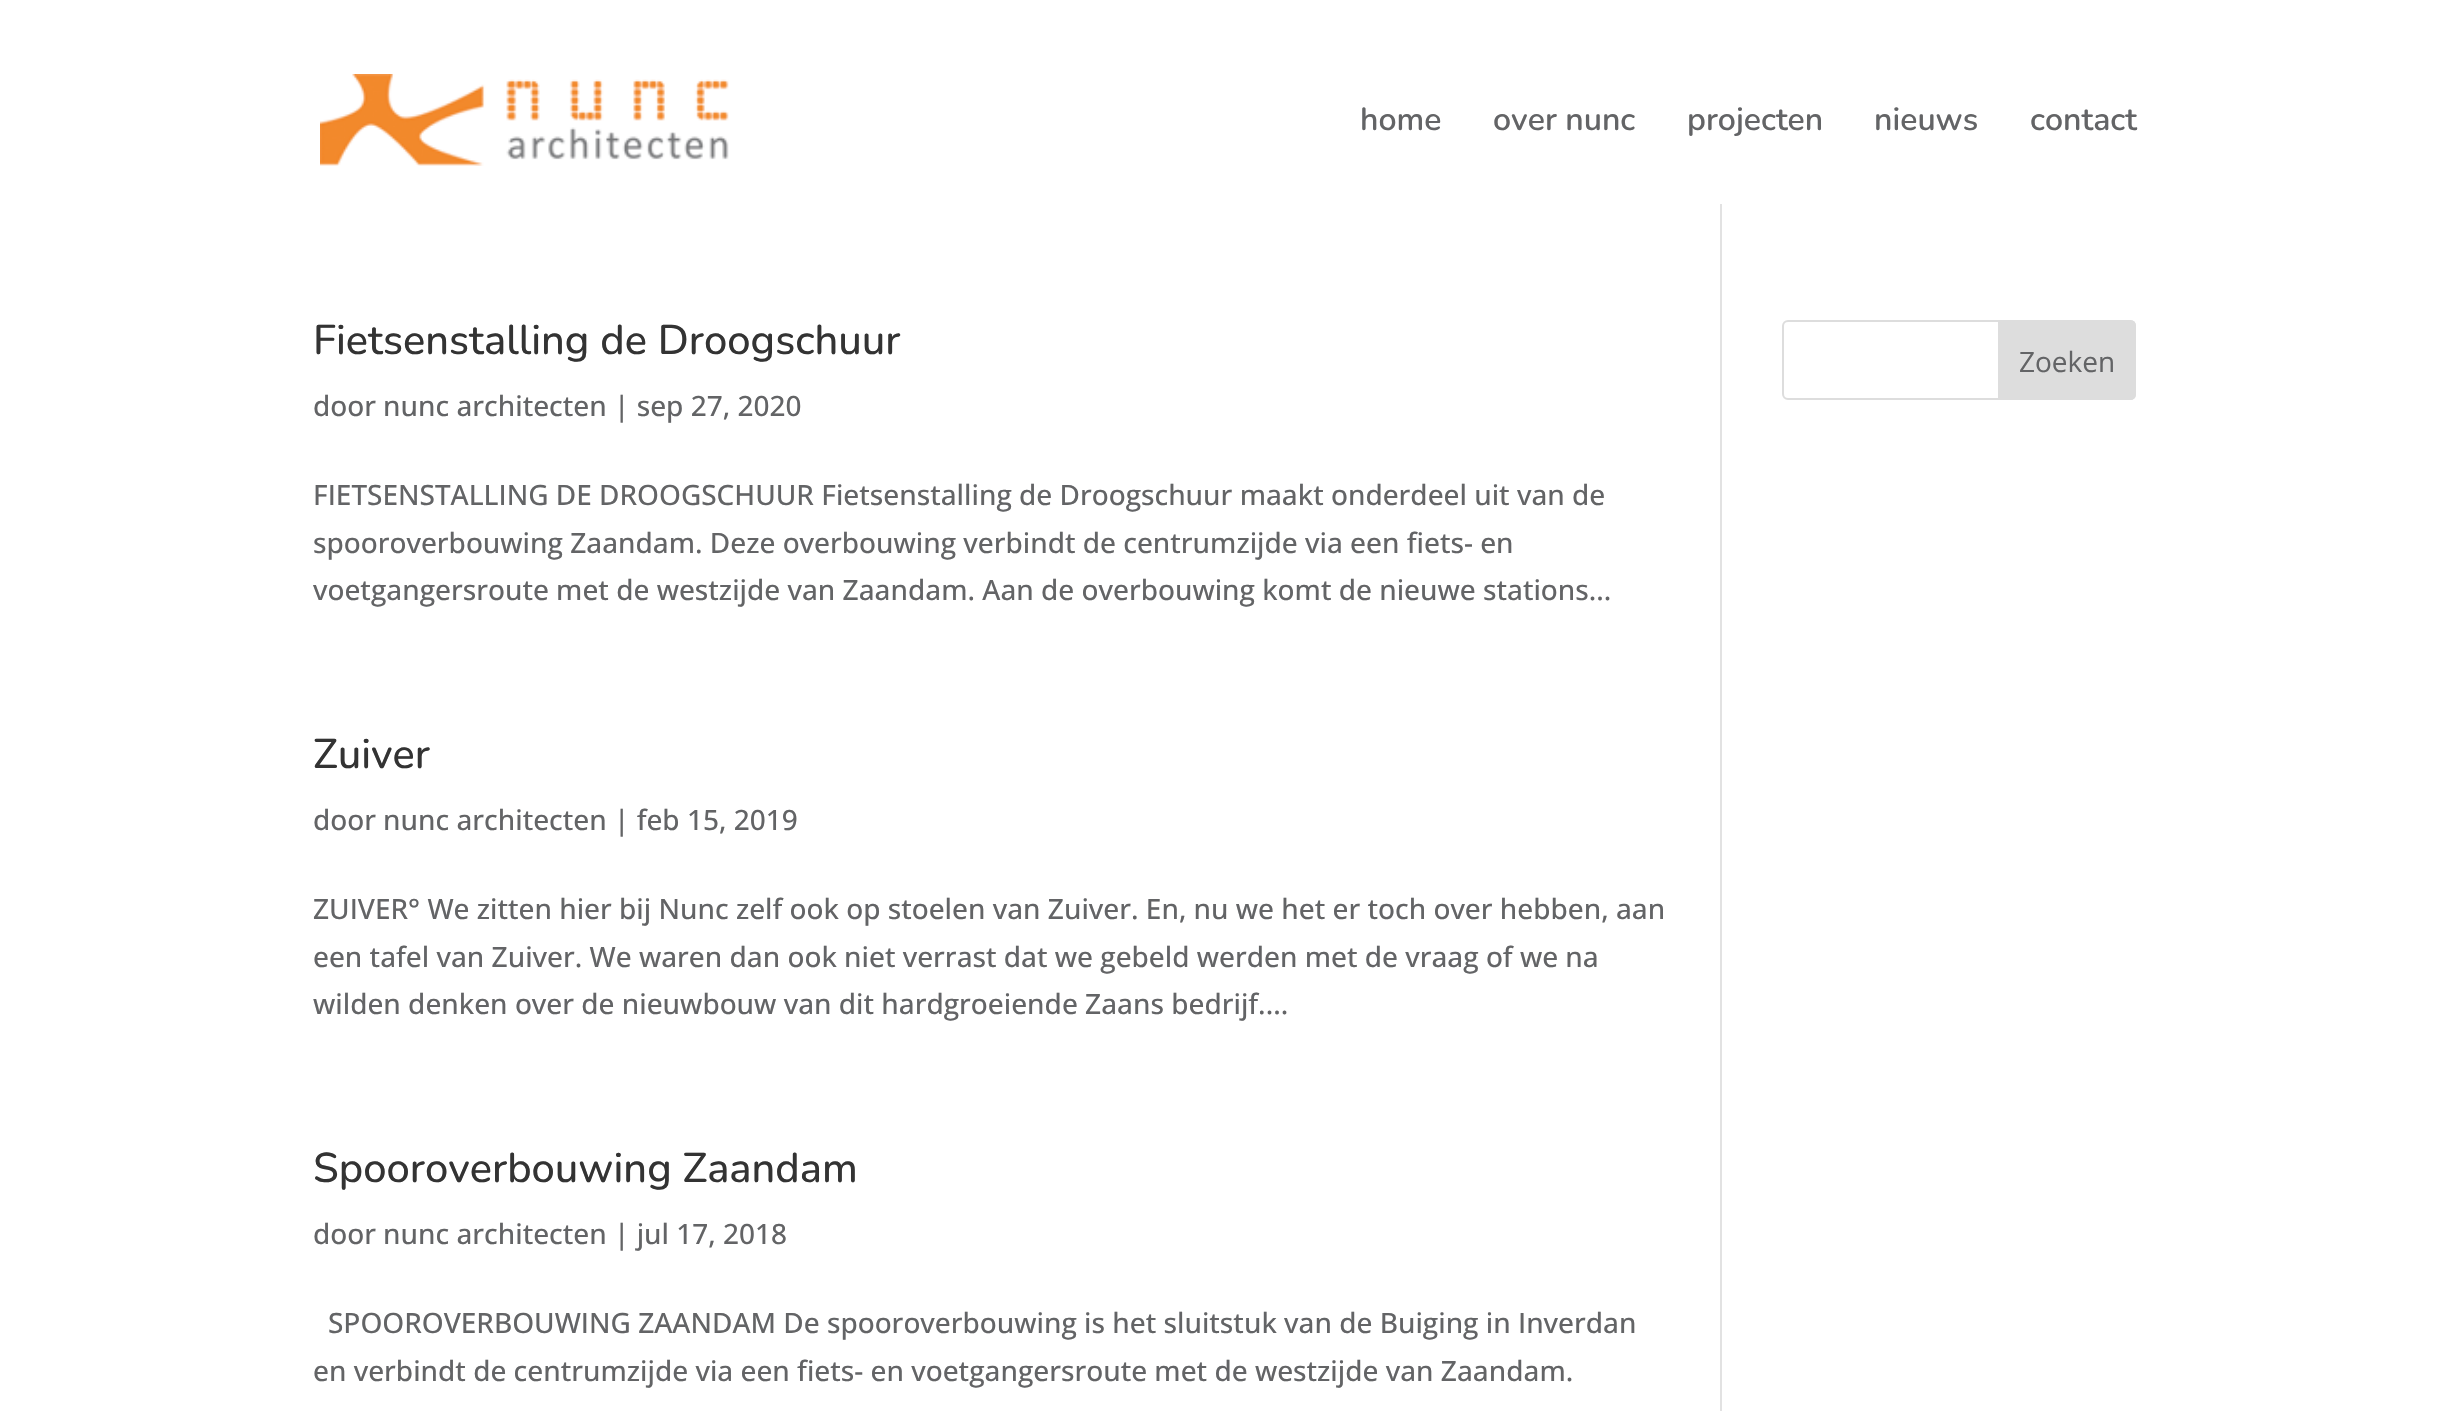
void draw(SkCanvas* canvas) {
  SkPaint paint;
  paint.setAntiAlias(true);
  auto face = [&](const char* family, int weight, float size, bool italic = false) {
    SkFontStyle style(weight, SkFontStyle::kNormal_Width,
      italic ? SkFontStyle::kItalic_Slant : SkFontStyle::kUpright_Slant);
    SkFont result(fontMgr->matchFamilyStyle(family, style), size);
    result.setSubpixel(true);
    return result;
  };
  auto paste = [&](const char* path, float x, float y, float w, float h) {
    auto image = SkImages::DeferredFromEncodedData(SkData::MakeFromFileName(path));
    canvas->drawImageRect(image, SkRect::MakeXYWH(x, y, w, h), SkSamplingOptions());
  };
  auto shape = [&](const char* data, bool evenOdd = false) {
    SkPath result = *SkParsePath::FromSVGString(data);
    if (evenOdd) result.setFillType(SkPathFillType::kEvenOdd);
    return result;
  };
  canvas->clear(0xffffffff);
  paste("img/1.png", 320, 74, 409, 92);
  paint.setColor(0xffe2e2e2);
  canvas->drawRect(SkRect::MakeXYWH(1720, 204, 2, 1207), paint);
  paint.setStroke(true);
  paint.setStrokeWidth(2);
  paint.setColor(0xffdddddd);
  canvas->drawRoundRect(SkRect::MakeXYWH(1783, 321, 352, 78), 5, 5, paint);
  paint.setStroke(false);
  canvas->drawPath(shape("M1999 321H2130C2133 321 2135 323 2135 326V394C2135 397 2133 399 2130 399H1999Z"), paint);
  paint.setStroke(true);
  canvas->drawPath(shape("M1999 321H2130C2133 321 2135 323 2135 326V394C2135 397 2133 399 2130 399H1999Z"), paint);
  auto f0 = face("Nunito", 600, 32);
  paint.setStroke(false);
  paint.setColor(0xff636466);
  {
    const struct { const char* s; float x, y; } items[] = {
      {"home", 1360, 130},
      {"over nunc", 1493, 130},
      {"projecten", 1687, 130},
      {"nieuws", 1874, 130},
      {"contact", 2030, 130},
    };
    for (auto [s, x, y] : items) {
      canvas->drawString(s, x, y, f0, paint);
    }
  }
  auto f1 = face("Nunito", 500, 41.6f);
  paint.setColor(0xff333333);
  canvas->drawString("Fietsenstalling de Droogschuur", 313, 354, f1, paint);
  auto f2 = face("Open Sans", 500, 28);
  paint.setColor(0xff636466);
  {
    const struct { const char* s; float x, y; } items[] = {
      {"door", 313, 416},
      {"nunc architecten", 383, 416},
      {"| sep 27, 2020", 614, 416},
      {"FIETSENSTALLING DE DROOGSCHUUR Fietsenstalling de Droogschuur maakt onderdeel uit van de", 313, 505},
      {"spooroverbouwing Zaandam. Deze overbouwing verbindt de centrumzijde via een fiets- en", 313, 553},
      {"voetgangersroute met de westzijde van Zaandam. Aan de overbouwing komt de nieuwe stations...", 313, 600},
    };
    for (auto [s, x, y] : items) {
      canvas->drawString(s, x, y, f2, paint);
    }
  }
  paint.setColor(0xff333333);
  canvas->drawString("Zuiver", 313, 768, f1, paint);
  paint.setColor(0xff636466);
  {
    const struct { const char* s; float x, y; } items[] = {
      {"door", 313, 830},
      {"nunc architecten", 383, 830},
      {"| feb 15, 2019", 614, 830},
      {"ZUIVER° We zitten hier bij Nunc zelf ook op stoelen van Zuiver. En, nu we het er toch over hebben, aan", 313, 919},
      {"een tafel van Zuiver. We waren dan ook niet verrast dat we gebeld werden met de vraag of we na", 313, 967},
      {"wilden denken over de nieuwbouw van dit hardgroeiende Zaans bedrijf....", 313, 1014},
    };
    for (auto [s, x, y] : items) {
      canvas->drawString(s, x, y, f2, paint);
    }
  }
  paint.setColor(0xff333333);
  canvas->drawString("Spooroverbouwing Zaandam", 313, 1182, f1, paint);
  paint.setColor(0xff636466);
  {
    const struct { const char* s; float x, y; } items[] = {
      {"door", 313, 1244},
      {"nunc architecten", 383, 1244},
      {"| jul 17, 2018", 614, 1244},
      {"SPOOROVERBOUWING ZAANDAM De spooroverbouwing is het sluitstuk van de Buiging in Inverdan", 328, 1333},
      {"en verbindt de centrumzijde via een fiets- en voetgangersroute met de westzijde van Zaandam.", 313, 1381},
    };
    for (auto [s, x, y] : items) {
      canvas->drawString(s, x, y, f2, paint);
    }
  }
  auto f3 = face("Open Sans", 400, 28);
  canvas->drawString("Zoeken", 2019, 372, f3, paint);
}
